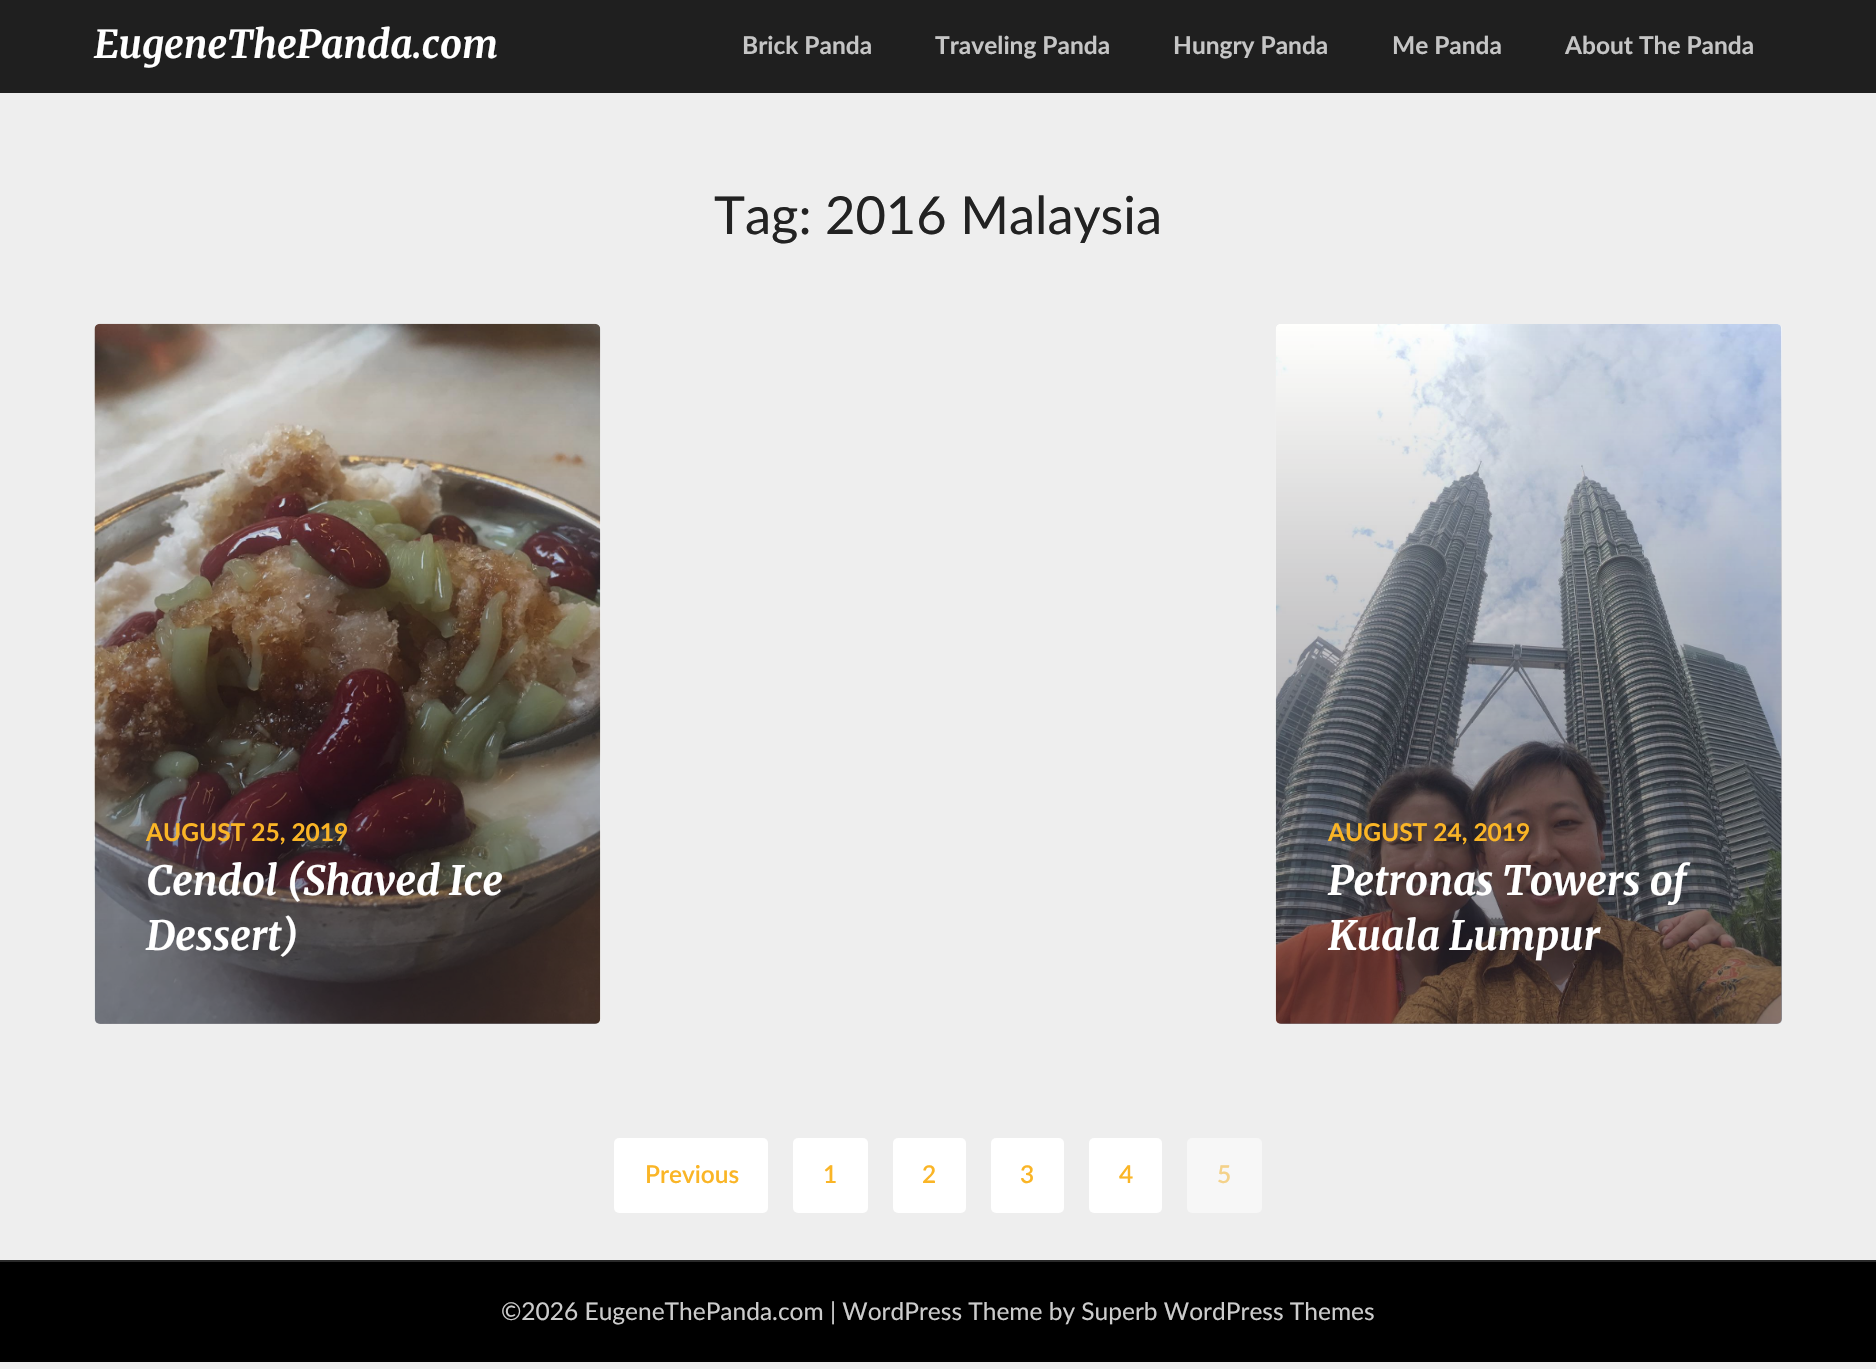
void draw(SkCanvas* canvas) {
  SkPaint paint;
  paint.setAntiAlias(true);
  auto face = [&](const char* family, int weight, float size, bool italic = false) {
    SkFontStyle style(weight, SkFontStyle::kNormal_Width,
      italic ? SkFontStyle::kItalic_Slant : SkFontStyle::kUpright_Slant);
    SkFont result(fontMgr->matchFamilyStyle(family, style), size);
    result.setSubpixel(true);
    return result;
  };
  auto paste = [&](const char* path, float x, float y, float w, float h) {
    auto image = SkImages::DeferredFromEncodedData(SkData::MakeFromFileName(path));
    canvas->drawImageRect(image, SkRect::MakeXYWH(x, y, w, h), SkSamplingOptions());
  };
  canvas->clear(0xffeeeeee);
  paint.setColor(0xff1f1f1f);
  canvas->drawRect(SkRect::MakeXYWH(0, 0, 1876, 93), paint);
  paint.setColor(0xffffffff);
  canvas->drawRoundRect(SkRect::MakeXYWH(95, 324, 505, 700), 5, 5, paint);
  paste("img/1.png", 94, 323, 507, 701);
  {
    const SkColor colors[] = {0x00201e2c, 0x82201e2c, 0x85201e2c};
    const float stops[] = {0, 0.88f, 0.89f};
    const SkPoint ends[] = {{347, 324}, {347, 1024}};
    paint.setShader(SkGradientShader::MakeLinear(ends, colors, stops, 3, SkTileMode::kClamp));
    paint.setAlpha(255);
  }
  canvas->drawRoundRect(SkRect::MakeXYWH(95, 324, 505, 700), 5, 5, paint);
  paint.setShader(nullptr);
  paint.setColor(0xffffffff);
  canvas->drawRoundRect(SkRect::MakeXYWH(1276, 324, 506, 700), 5, 5, paint);
  paste("img/2.png", 1275, 324, 507, 700);
  {
    const SkColor colors[] = {0x00201e2c, 0x82201e2c, 0x85201e2c};
    const float stops[] = {0, 0.88f, 0.89f};
    const SkPoint ends[] = {{1529, 324}, {1529, 1024}};
    paint.setShader(SkGradientShader::MakeLinear(ends, colors, stops, 3, SkTileMode::kClamp));
    paint.setAlpha(255);
  }
  canvas->drawRoundRect(SkRect::MakeXYWH(1276, 324, 506, 700), 5, 5, paint);
  paint.setShader(nullptr);
  paint.setColor(0xffffffff);
  canvas->drawRoundRect(SkRect::MakeXYWH(614, 1138, 154, 75), 5, 5, paint);
  canvas->drawRoundRect(SkRect::MakeXYWH(793, 1138, 75, 75), 5, 5, paint);
  canvas->drawRoundRect(SkRect::MakeXYWH(893, 1138, 73, 75), 5, 5, paint);
  canvas->drawRoundRect(SkRect::MakeXYWH(991, 1138, 73, 75), 5, 5, paint);
  canvas->drawRoundRect(SkRect::MakeXYWH(1089, 1138, 73, 75), 5, 5, paint);
  paint.setColor(0xfff7f7f7);
  canvas->drawRoundRect(SkRect::MakeXYWH(1187, 1138, 75, 75), 5, 5, paint);
  paint.setColor(0xff000000);
  canvas->drawRect(SkRect::MakeXYWH(0, 1262, 1876, 100), paint);
  paint.setColor(0xff292929);
  canvas->drawRect(SkRect::MakeXYWH(0, 1260, 1876, 2), paint);
  auto f0 = face("Merriweather", 700, 38.5f, true);
  paint.setColor(0xffffffff);
  canvas->drawString("EugeneThePanda.com", 94, 58, f0, paint);
  auto f1 = face("Lato", 700, 24.5f);
  paint.setColor(0xffc5c5c5);
  {
    const struct { const char* s; float x, y; } items[] = {
      {"Brick Panda", 742, 54},
      {"Traveling Panda", 935, 54},
      {"Hungry Panda", 1173, 54},
      {"Me Panda", 1392, 54},
      {"About The Panda", 1565, 54},
    };
    for (auto [s, x, y] : items) {
      canvas->drawString(s, x, y, f1, paint);
    }
  }
  auto f2 = face("Lato", 400, 52.5f);
  paint.setColor(0xff222222);
  canvas->drawString("Tag: 2016 Malaysia", 714, 234, f2, paint);
  paint.setColor(0xfffab526);
  canvas->drawString("AUGUST 25, 2019", 146, 841, f1, paint);
  auto f3 = face("Merriweather", 700, 40.25f, true);
  paint.setColor(0xffffffff);
  canvas->drawString("Cendol (Shaved Ice", 146, 895, f3, paint);
  canvas->drawString("Dessert)", 146, 950, f3, paint);
  paint.setColor(0xfffab526);
  canvas->drawString("AUGUST 24, 2019", 1328, 841, f1, paint);
  paint.setColor(0xffffffff);
  canvas->drawString("Petronas Towers of", 1328, 895, f3, paint);
  canvas->drawString("Kuala Lumpur", 1328, 950, f3, paint);
  auto f4 = face("Lato", 600, 24.5f);
  paint.setColor(0xfffab526);
  {
    const struct { const char* s; float x, y; } items[] = {
      {"Previous", 645, 1183},
      {"1", 823, 1183},
      {"2", 922, 1183},
      {"3", 1020, 1183},
      {"4", 1119, 1183},
    };
    for (auto [s, x, y] : items) {
      canvas->drawString(s, x, y, f4, paint);
    }
  }
  paint.setColor(0xfff4d28a);
  canvas->drawString("5", 1217, 1183, f4, paint);
  auto f5 = face("Lato", 400, 24.5f);
  paint.setColor(0xffcccccc);
  canvas->drawString("©2026 EugeneThePanda.com | WordPress Theme by Superb WordPress Themes", 501, 1320, f5, paint);
}
